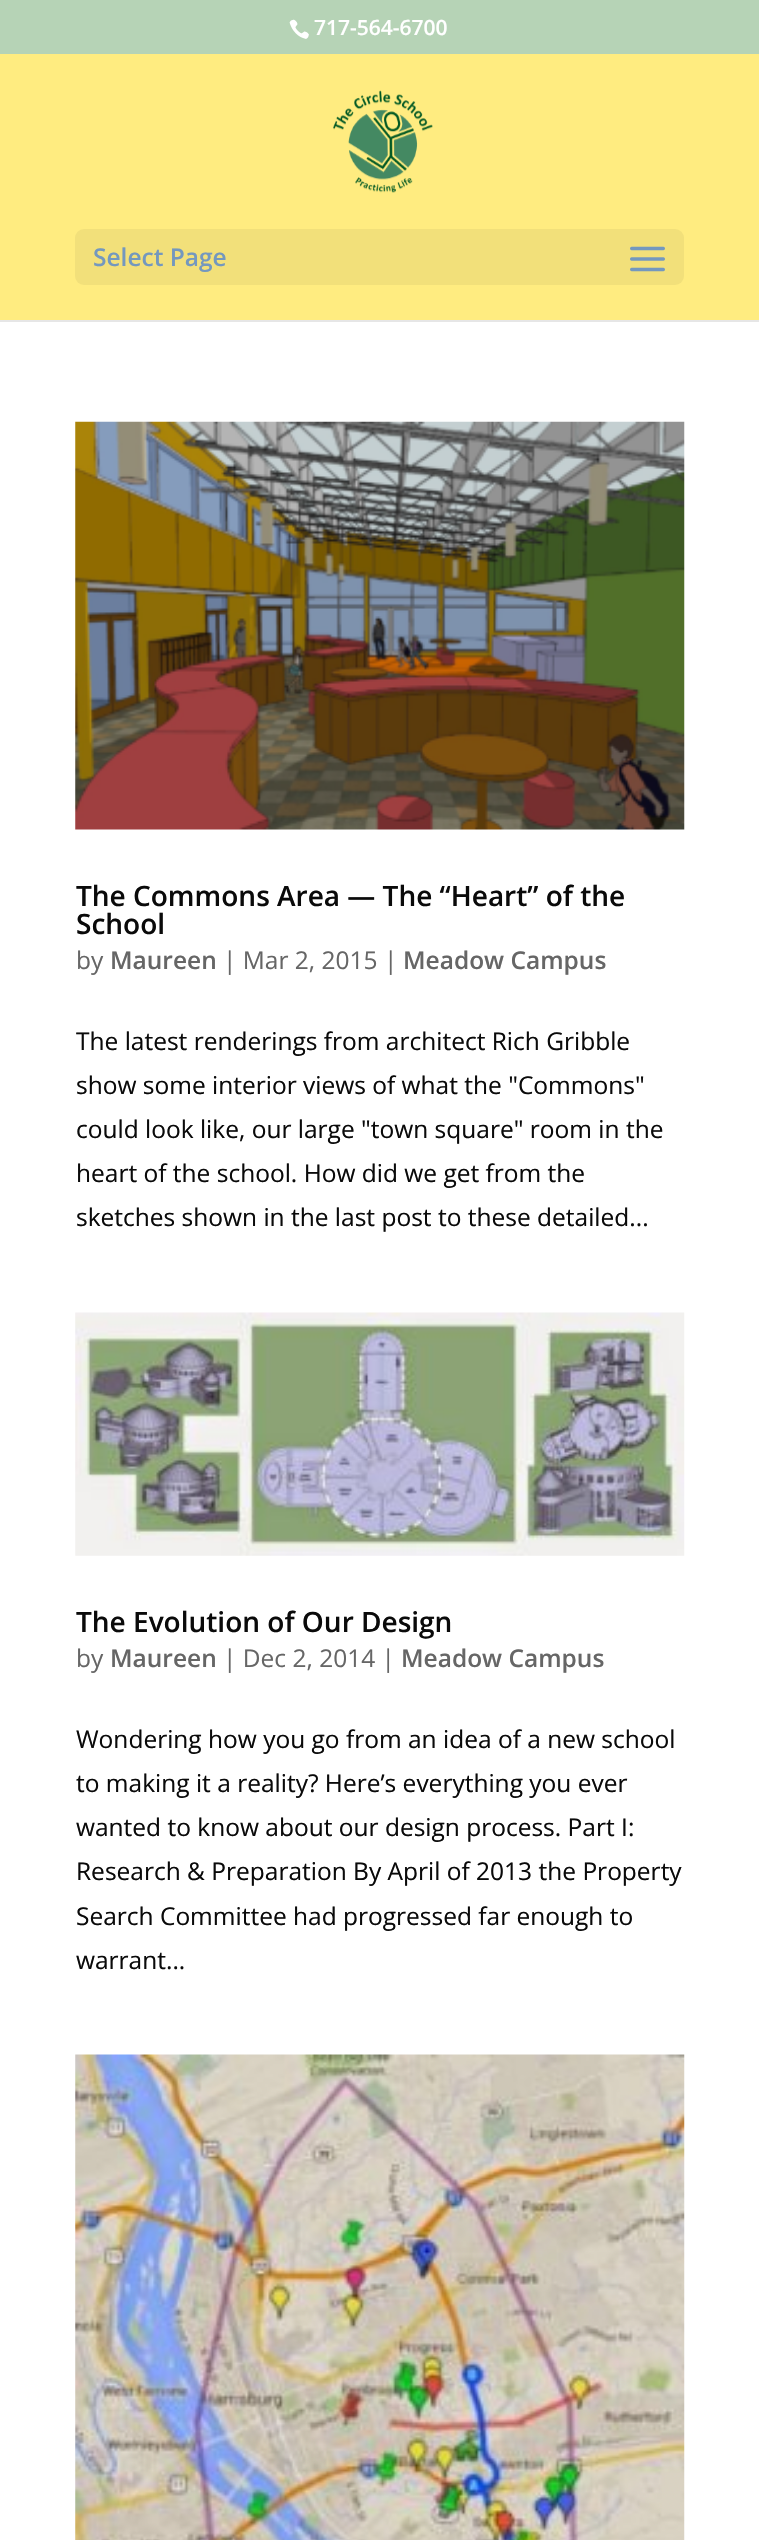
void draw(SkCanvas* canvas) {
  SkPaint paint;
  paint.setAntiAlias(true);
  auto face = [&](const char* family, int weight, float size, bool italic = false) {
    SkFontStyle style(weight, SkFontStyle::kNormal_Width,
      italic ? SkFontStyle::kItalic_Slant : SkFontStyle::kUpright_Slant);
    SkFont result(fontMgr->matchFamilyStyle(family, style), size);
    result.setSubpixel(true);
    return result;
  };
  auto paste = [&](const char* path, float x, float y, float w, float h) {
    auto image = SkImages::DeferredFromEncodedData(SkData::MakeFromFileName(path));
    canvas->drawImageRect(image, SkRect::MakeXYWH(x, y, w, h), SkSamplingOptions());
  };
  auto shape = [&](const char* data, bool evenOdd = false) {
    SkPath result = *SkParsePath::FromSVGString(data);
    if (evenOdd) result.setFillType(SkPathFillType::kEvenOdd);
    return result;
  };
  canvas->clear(0xffffffff);
  paint.setColor(0xffb6d3b6);
  canvas->drawRect(SkRect::MakeXYWH(0, 0, 759, 54), paint);
  paste("img/1.png", 289, 19, 20, 20);
  paint.setColor(0xffe6e6e6);
  canvas->drawPath(shape("M0 320V322H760V56V320Z"), paint);
  paint.setColor(0xffffec80);
  canvas->drawRect(SkRect::MakeXYWH(0, 54, 759, 266), paint);
  paste("img/2.png", 333, 90, 100, 103);
  paint.setColor(0xfff2e07a);
  canvas->drawRoundRect(SkRect::MakeXYWH(75, 229, 609, 56), 9, 9, paint);
  paste("img/3.png", 630, 246, 35, 26);
  paste("img/4.png", 75, 421, 610, 409);
  paste("img/5.png", 75, 1312, 610, 244);
  paste("img/6.png", 75, 2054, 610, 486);
  auto f0 = face("Open Sans", 600, 21);
  paint.setColor(0xffffffff);
  canvas->drawString("717-564-6700", 314, 35, f0, paint);
  auto f1 = face("Open Sans", 600, 24.5f);
  paint.setColor(0xff7498be);
  canvas->drawString("Select Page", 93, 266, f1, paint);
  auto f2 = face("Open Sans", 600, 28);
  paint.setColor(0xff0a0a0a);
  canvas->drawString("The Commons Area — The “Heart” of the", 76, 906, f2, paint);
  canvas->drawString("School", 76, 934, f2, paint);
  auto f3 = face("Open Sans", 400, 24.5f);
  paint.setColor(0xff666666);
  canvas->drawString("by", 76, 969, f3, paint);
  canvas->drawString("Maureen", 110, 969, f1, paint);
  canvas->drawString("| Mar 2, 2015 |", 223, 969, f3, paint);
  canvas->drawString("Meadow Campus", 403, 969, f1, paint);
  paint.setColor(0xff0a0a0a);
  {
    const struct { const char* s; float x, y; } items[] = {
      {"The latest renderings from architect Rich Gribble", 76, 1050},
      {"show some interior views of what the \"Commons\"", 76, 1094},
      {"could look like, our large \"town square\" room in the", 76, 1138},
      {"heart of the school. How did we get from the", 76, 1182},
      {"sketches shown in the last post to these detailed...", 76, 1226},
    };
    for (auto [s, x, y] : items) {
      canvas->drawString(s, x, y, f3, paint);
    }
  }
  canvas->drawString("The Evolution of Our Design", 76, 1632, f2, paint);
  paint.setColor(0xff666666);
  canvas->drawString("by", 76, 1667, f3, paint);
  canvas->drawString("Maureen", 110, 1667, f1, paint);
  canvas->drawString("| Dec 2, 2014 |", 223, 1667, f3, paint);
  canvas->drawString("Meadow Campus", 401, 1667, f1, paint);
  paint.setColor(0xff0a0a0a);
  {
    const struct { const char* s; float x, y; } items[] = {
      {"Wondering how you go from an idea of a new school", 76, 1748},
      {"to making it a reality? Here’s everything you ever", 76, 1792},
      {"wanted to know about our design process. Part I:", 76, 1836},
      {"Research & Preparation By April of 2013 the Property", 76, 1880},
      {"Search Committee had progressed far enough to", 76, 1925},
      {"warrant...", 76, 1969},
    };
    for (auto [s, x, y] : items) {
      canvas->drawString(s, x, y, f3, paint);
    }
  }
}
